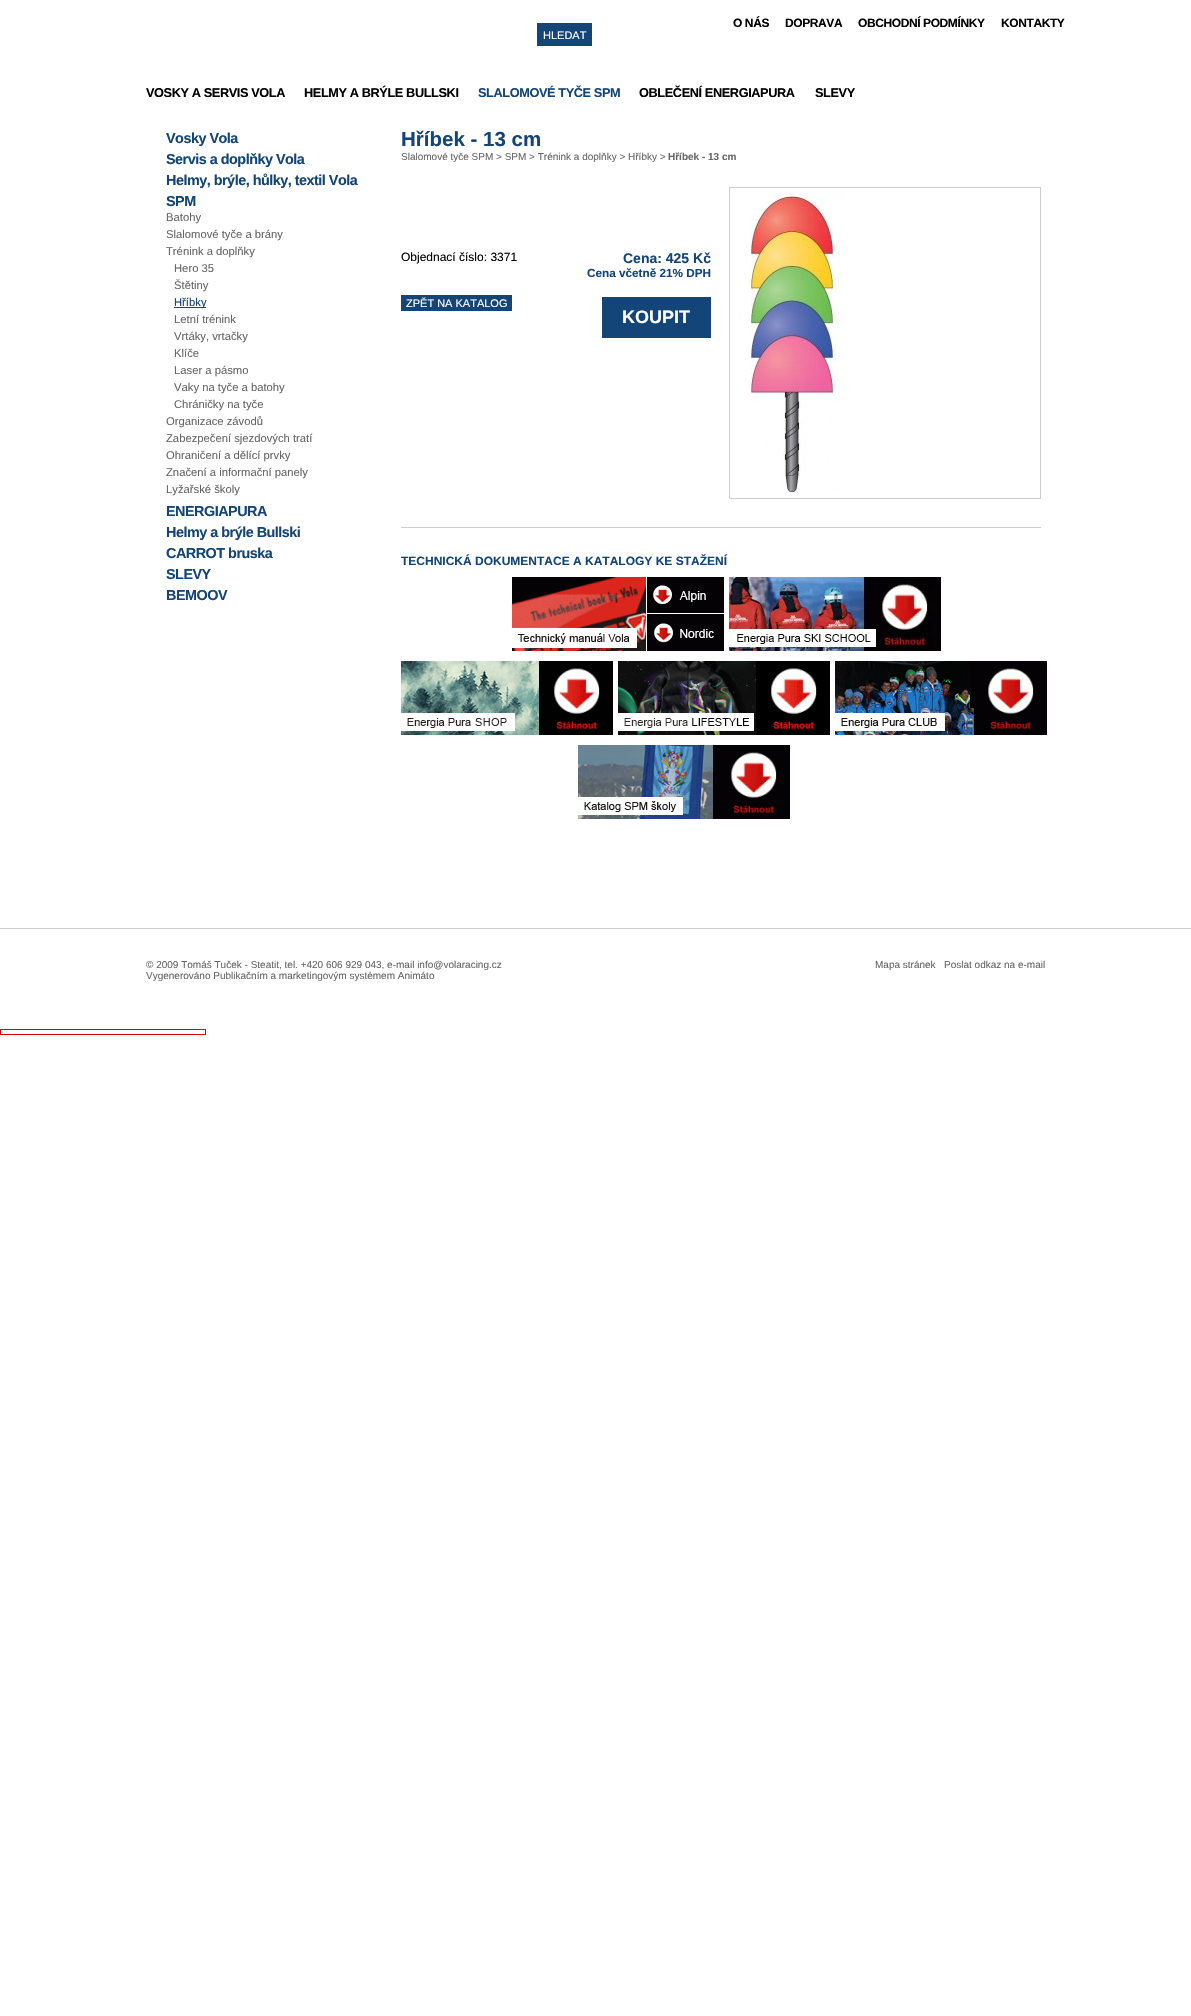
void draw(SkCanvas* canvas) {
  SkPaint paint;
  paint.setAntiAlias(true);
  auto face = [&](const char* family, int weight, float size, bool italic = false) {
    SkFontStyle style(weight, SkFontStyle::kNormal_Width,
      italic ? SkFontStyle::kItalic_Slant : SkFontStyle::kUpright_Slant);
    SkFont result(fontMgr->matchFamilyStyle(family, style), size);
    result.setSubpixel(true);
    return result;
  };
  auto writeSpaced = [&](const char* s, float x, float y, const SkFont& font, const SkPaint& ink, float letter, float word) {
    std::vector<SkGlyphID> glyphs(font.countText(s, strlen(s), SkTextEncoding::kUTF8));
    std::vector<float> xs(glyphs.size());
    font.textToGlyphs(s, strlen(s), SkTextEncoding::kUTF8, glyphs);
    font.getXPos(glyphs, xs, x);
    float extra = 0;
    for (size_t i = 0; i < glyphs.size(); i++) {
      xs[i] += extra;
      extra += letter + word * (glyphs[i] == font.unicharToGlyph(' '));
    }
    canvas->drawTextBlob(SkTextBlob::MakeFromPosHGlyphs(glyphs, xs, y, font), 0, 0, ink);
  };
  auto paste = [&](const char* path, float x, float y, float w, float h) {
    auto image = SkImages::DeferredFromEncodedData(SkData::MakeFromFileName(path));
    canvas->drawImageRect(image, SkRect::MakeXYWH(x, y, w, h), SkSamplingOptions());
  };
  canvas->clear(0xffffffff);
  {
    const struct { float x, y, w, h; SkColor color; } items[] = {
      {174, 307, 32, 1, 0xff144579},
      {401, 295, 111, 16, 0xff144579},
      {602, 297, 109, 41, 0xff144579},
    };
    for (auto [x, y, w, h, color] : items) {
      paint.setColor(color);
      canvas->drawRect(SkRect::MakeXYWH(x, y, w, h), paint);
    }
  }
  paint.setStroke(true);
  paint.setStrokeWidth(1);
  paint.setColor(0xffcccccc);
  canvas->drawRect(SkRect::MakeXYWH(729.5f, 187.5f, 311, 311), paint);
  paste("img/1.png", 750, 193, 96, 300);
  paint.setStroke(false);
  paint.setColor(0xffcecece);
  canvas->drawRect(SkRect::MakeXYWH(401, 527, 640, 1), paint);
  paste("img/2.png", 512, 577, 134, 74);
  paste("img/3.png", 647, 577, 77, 36);
  paste("img/4.png", 647, 614, 77, 37);
  paste("img/5.png", 729, 577, 212, 74);
  paste("img/6.png", 401, 661, 212, 74);
  paste("img/7.png", 618, 661, 212, 74);
  paste("img/8.png", 835, 661, 212, 74);
  paste("img/9.png", 578, 745, 212, 74);
  paint.setColor(0xff144579);
  canvas->drawRect(SkRect::MakeXYWH(537, 23, 55, 23), paint);
  paint.setColor(0xffcecece);
  canvas->drawRect(SkRect::MakeXYWH(0, 928, 1191, 1), paint);
  paint.setStroke(true);
  paint.setColor(0xffd90000);
  canvas->drawRect(SkRect::MakeXYWH(0.5f, 1029.5f, 205, 5), paint);
  auto f0 = face("Liberation Sans", 700, 12);
  paint.setStroke(false);
  paint.setColor(0xff000000);
  {
    const struct { const char* s; float x, y; } items[] = {
      {"O NÁS", 733, 27},
      {"DOPRAVA", 785, 27},
      {"OBCHODNÍ PODMÍNKY", 858, 27},
      {"KONTAKTY", 1001, 27},
    };
    for (auto [s, x, y] : items) {
      writeSpaced(s, x, y, f0, paint, -0.4f, 0);
    }
  }
  auto f1 = face("Liberation Sans", 700, 12.75f);
  writeSpaced("VOSKY A SERVIS VOLA", 146, 97, f1, paint, -0.4f, 0);
  writeSpaced("HELMY A BRÝLE BULLSKI", 304, 97, f1, paint, -0.4f, 0);
  paint.setColor(0xff144579);
  writeSpaced("SLALOMOVÉ TYČE SPM", 478, 97, f1, paint, -0.4f, 0);
  paint.setColor(0xff000000);
  writeSpaced("OBLEČENÍ ENERGIAPURA", 639, 97, f1, paint, -0.4f, 0);
  writeSpaced("SLEVY", 815, 97, f1, paint, -0.4f, 0);
  auto f2 = face("Liberation Sans", 700, 14.4f);
  paint.setColor(0xff144579);
  {
    const struct { const char* s; float x, y; } items[] = {
      {"Vosky Vola", 166, 143},
      {"Servis a doplňky Vola", 166, 164},
      {"Helmy, brýle, hůlky, textil Vola", 166, 185},
      {"SPM", 166, 206},
    };
    for (auto [s, x, y] : items) {
      writeSpaced(s, x, y, f2, paint, -0.5f, 0);
    }
  }
  auto f3 = face("Liberation Sans", 400, 11.25f);
  paint.setColor(0xff666666);
  {
    const struct { const char* s; float x, y; } items[] = {
      {"Batohy", 166, 221},
      {"Slalomové tyče a brány", 166, 238},
      {"Trénink a doplňky", 166, 255},
      {"Hero 35", 174, 272},
      {"Štětiny", 174, 289},
    };
    for (auto [s, x, y] : items) {
      canvas->drawString(s, x, y, f3, paint);
    }
  }
  paint.setColor(0xff144579);
  canvas->drawString("Hříbky", 174, 306, f3, paint);
  paint.setColor(0xff666666);
  {
    const struct { const char* s; float x, y; } items[] = {
      {"Letní trénink", 174, 323},
      {"Vrtáky, vrtačky", 174, 340},
      {"Klíče", 174, 357},
      {"Laser a pásmo", 174, 374},
      {"Vaky na tyče a batohy", 174, 391},
      {"Chráničky na tyče", 174, 408},
      {"Organizace závodů", 166, 425},
      {"Zabezpečení sjezdových tratí", 166, 442},
      {"Ohraničení a dělící prvky", 166, 459},
      {"Značení a informační panely", 166, 476},
      {"Lyžařské školy", 166, 493},
    };
    for (auto [s, x, y] : items) {
      canvas->drawString(s, x, y, f3, paint);
    }
  }
  paint.setColor(0xff144579);
  {
    const struct { const char* s; float x, y; } items[] = {
      {"ENERGIAPURA", 166, 516},
      {"Helmy a brýle Bullski", 166, 537},
      {"CARROT bruska", 166, 558},
      {"SLEVY", 166, 579},
      {"BEMOOV", 166, 600},
    };
    for (auto [s, x, y] : items) {
      writeSpaced(s, x, y, f2, paint, -0.5f, 0);
    }
  }
  auto f4 = face("Liberation Sans", 700, 20.5f);
  canvas->drawString("Hříbek - 13 cm", 401, 146, f4, paint);
  auto f5 = face("Liberation Sans", 400, 10);
  paint.setColor(0xff666666);
  canvas->drawString("Slalomové tyče SPM > SPM > Trénink a doplňky > Hříbky >", 401, 160, f5, paint);
  auto f6 = face("Liberation Sans", 700, 10);
  canvas->drawString("Hříbek - 13 cm", 668, 160, f6, paint);
  auto f7 = face("Liberation Sans", 400, 12);
  paint.setColor(0xff000000);
  canvas->drawString("Objednací číslo: 3371", 401, 261, f7, paint);
  auto f8 = face("Liberation Sans", 700, 14);
  paint.setColor(0xff144579);
  canvas->drawString("Cena: 425 Kč", 623, 263, f8, paint);
  auto f9 = face("Liberation Sans", 700, 11.75f);
  canvas->drawString("Cena včetně 21% DPH", 587, 277, f9, paint);
  auto f10 = face("Liberation Sans", 400, 11);
  paint.setColor(0xffffffff);
  canvas->drawString("ZPĚT NA KATALOG", 406, 307, f10, paint);
  auto f11 = face("Liberation Sans", 700, 18);
  canvas->drawString("KOUPIT", 622, 323, f11, paint);
  paint.setColor(0xff144579);
  canvas->drawString("TECHNICKÁ DOKUMENTACE A KATALOGY KE STAŽENÍ", 401, 565, f0, paint);
  paint.setColor(0xffffffff);
  canvas->drawString("HLEDAT", 543, 39, f10, paint);
  paint.setColor(0xff666666);
  {
    const struct { const char* s; float x, y; } items[] = {
      {"© 2009 Tomáš Tuček - Steatit, tel. +420 606 929 043, e-mail info@volaracing.cz", 146, 968},
      {"Vygenerováno Publikačním a marketingovým systémem Animáto", 146, 979},
      {"Mapa stránek", 875, 968},
      {"Poslat odkaz na e-mail", 944, 968},
    };
    for (auto [s, x, y] : items) {
      canvas->drawString(s, x, y, f5, paint);
    }
  }
}
